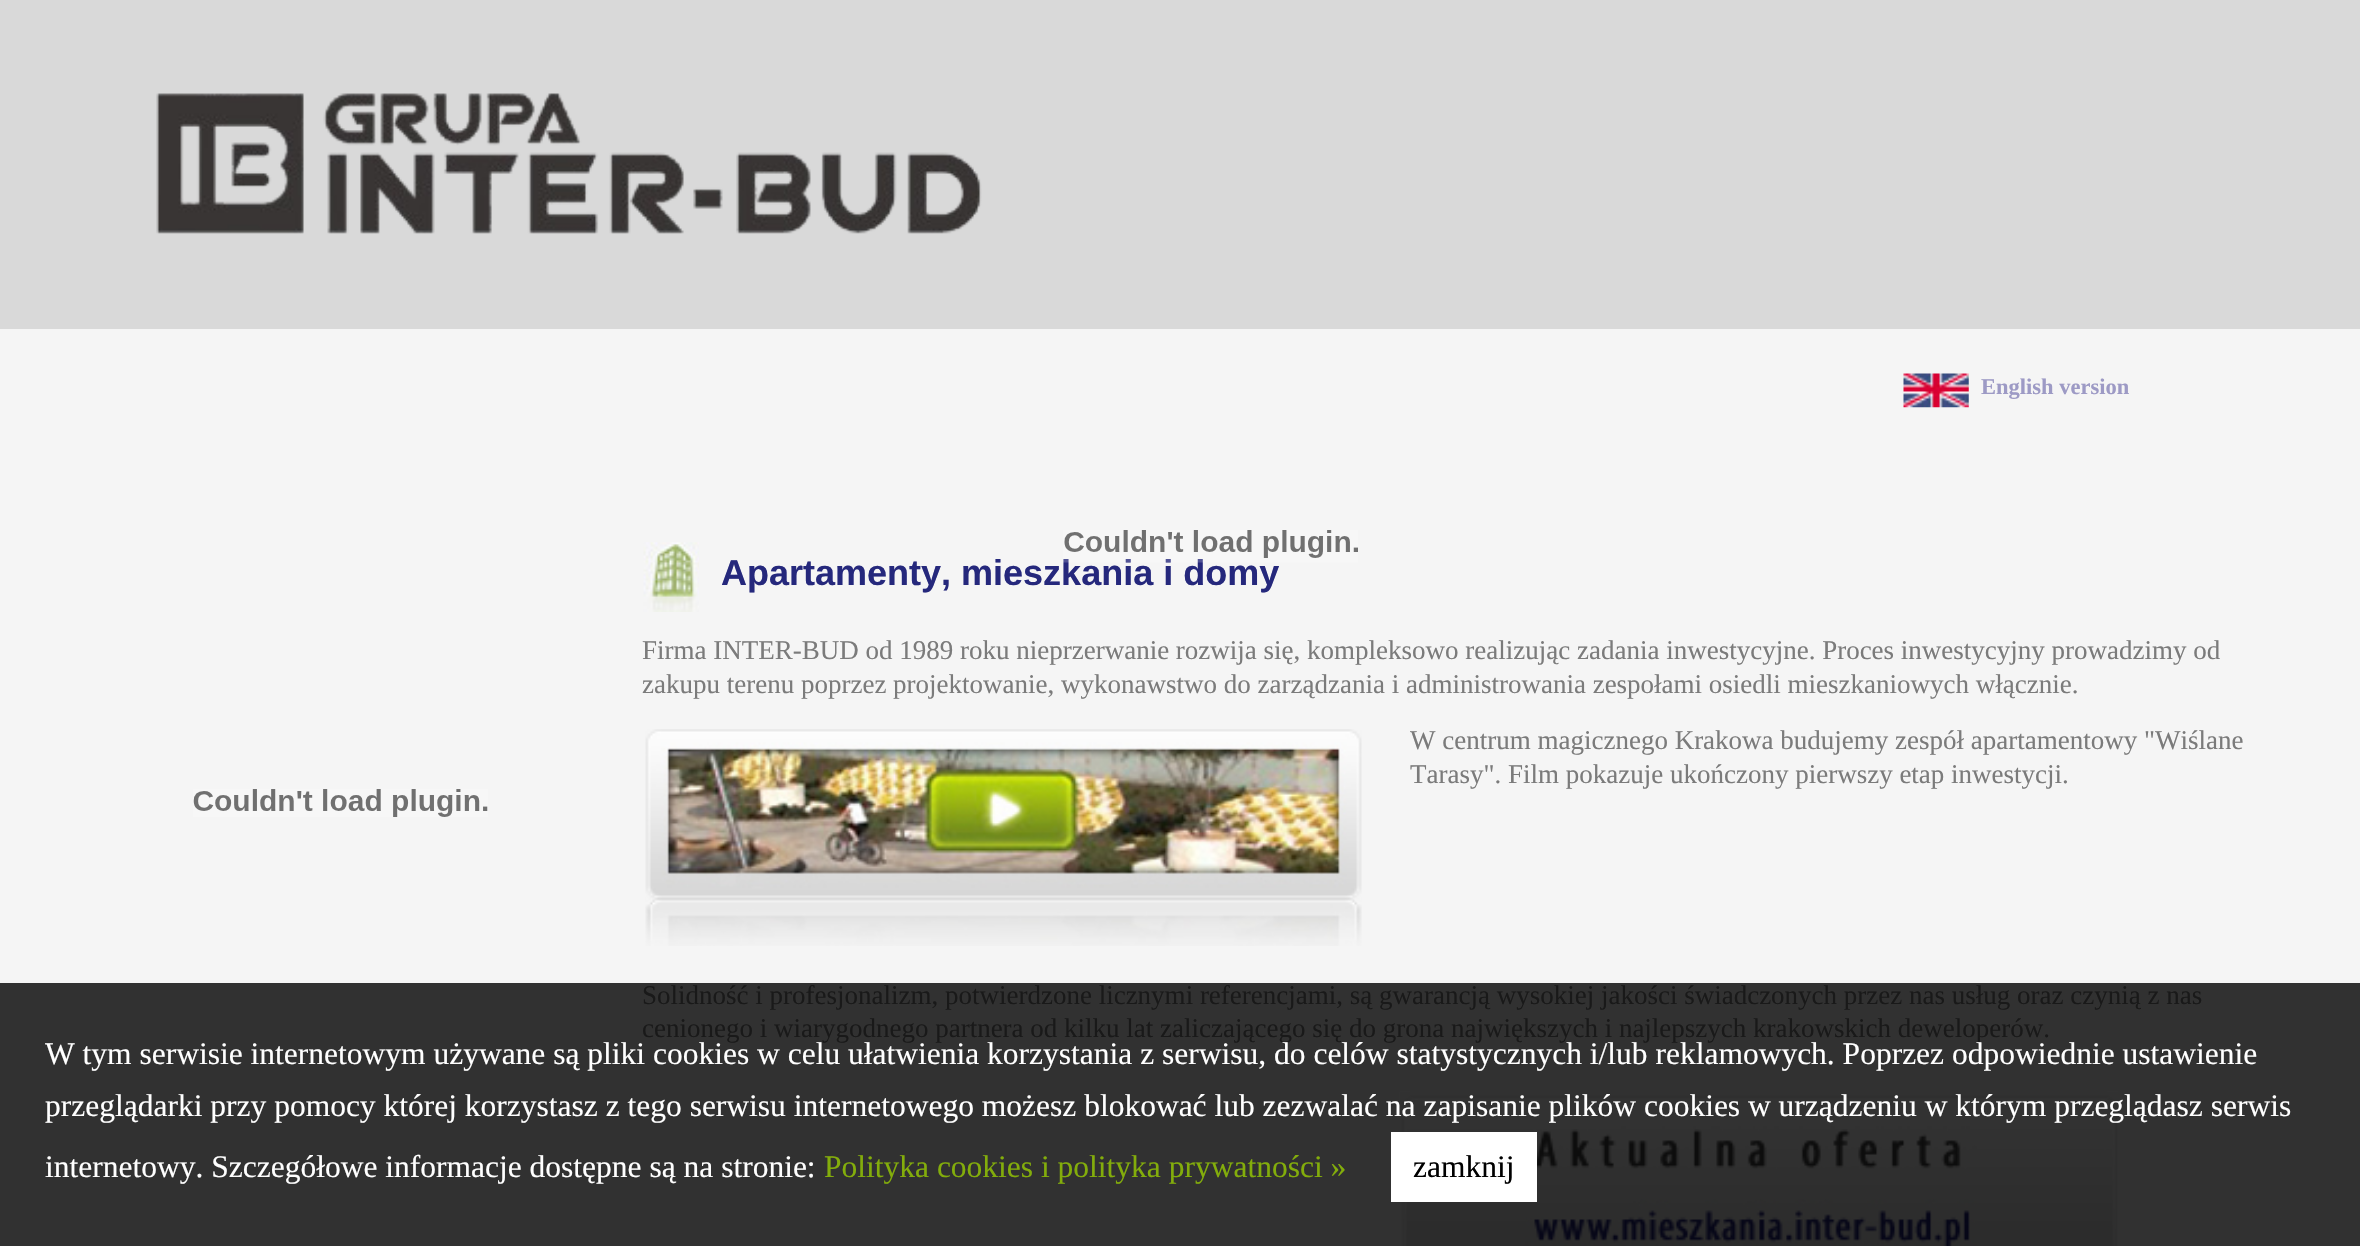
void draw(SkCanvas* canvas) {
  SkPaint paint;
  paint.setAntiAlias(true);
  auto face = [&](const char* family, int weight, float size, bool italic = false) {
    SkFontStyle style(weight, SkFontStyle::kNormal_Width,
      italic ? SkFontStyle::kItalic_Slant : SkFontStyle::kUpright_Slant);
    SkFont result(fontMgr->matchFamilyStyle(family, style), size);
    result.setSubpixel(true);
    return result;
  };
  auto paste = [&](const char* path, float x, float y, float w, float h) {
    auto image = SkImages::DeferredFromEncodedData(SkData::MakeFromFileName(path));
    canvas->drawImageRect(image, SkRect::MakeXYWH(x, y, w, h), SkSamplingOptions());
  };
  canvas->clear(0xfff5f5f5);
  paint.setColor(0xff313131);
  canvas->drawRect(SkRect::MakeXYWH(0, 983, 2360, 263), paint);
  paint.setColor(0xffd9d9d9);
  canvas->drawRect(SkRect::MakeXYWH(0, 0, 2360, 329), paint);
  paste("img/1.png", 156, 93, 826, 141);
  paste("img/2.png", 193, 789, 295, 28);
  paste("img/3.png", 1903, 373, 66, 35);
  paste("img/5.png", 643, 542, 56, 70);
  paste("img/6.png", 645, 729, 717, 217);
  paste("img/7.png", 1399, 1091, 717, 155);
  paste("img/8.png", 1399, 1091, 719, 155);
  paint.setColor(0xffffffff);
  canvas->drawRect(SkRect::MakeXYWH(1391, 1132, 146, 70), paint);
  auto f0 = face("Liberation Serif", 700, 22.5f);
  paint.setColor(0xff9d9ac5);
  canvas->drawString("English version", 1981, 394, f0, paint);
  auto f1 = face("Liberation Sans", 700, 36);
  paint.setColor(0xff25287c);
  canvas->drawString("Apartamenty, mieszkania i domy", 721, 585, f1, paint);
  paste("img/4.png", 1063, 530, 295, 33);
  auto f2 = face("Liberation Serif", 400, 27);
  paint.setColor(0xff7b7b7b);
  {
    const struct { const char* s; float x, y; } items[] = {
      {"Firma INTER-BUD od 1989 roku nieprzerwanie rozwija się, kompleksowo realizując zadania inwestycyjne. Proces inwestycyjny prowadzimy od", 642, 659},
      {"zakupu terenu poprzez projektowanie, wykonawstwo do zarządzania i administrowania zespołami osiedli mieszkaniowych włącznie.", 642, 693},
      {"W centrum magicznego Krakowa budujemy zespół apartamentowy \"Wiślane", 1410, 749},
      {"Tarasy\". Film pokazuje ukończony pierwszy etap inwestycji.", 1410, 783},
    };
    for (auto [s, x, y] : items) {
      canvas->drawString(s, x, y, f2, paint);
    }
  }
  paint.setColor(0xff191919);
  canvas->drawString("Solidność i profesjonalizm, potwierdzone licznymi referencjami, są gwarancją wysokiej jakości świadczonych przez nas usług oraz czynią z nas", 642, 1004, f2, paint);
  canvas->drawString("cenionego i wiarygodnego partnera od kilku lat zaliczającego się do grona największych i najlepszych krakowskich deweloperów.", 642, 1037, f2, paint);
  auto f3 = face("Liberation Serif", 400, 31.5f);
  paint.setColor(0xffffffff);
  {
    const struct { const char* s; float x, y; } items[] = {
      {"W tym serwisie internetowym używane są pliki cookies w celu ułatwienia korzystania z serwisu, do celów statystycznych i/lub reklamowych. Poprzez odpowiednie ustawienie", 45, 1064},
      {"przeglądarki przy pomocy której korzystasz z tego serwisu internetowego możesz blokować lub zezwalać na zapisanie plików cookies w urządzeniu w którym przeglądasz serwis", 45, 1116},
      {"internetowy. Szczegółowe informacje dostępne są na stronie:", 45, 1177},
    };
    for (auto [s, x, y] : items) {
      canvas->drawString(s, x, y, f3, paint);
    }
  }
  paint.setColor(0xff83ad0b);
  canvas->drawString("Polityka cookies i polityka prywatności »", 824, 1177, f3, paint);
  paint.setColor(0xff000000);
  canvas->drawString("zamknij", 1413, 1177, f3, paint);
}
